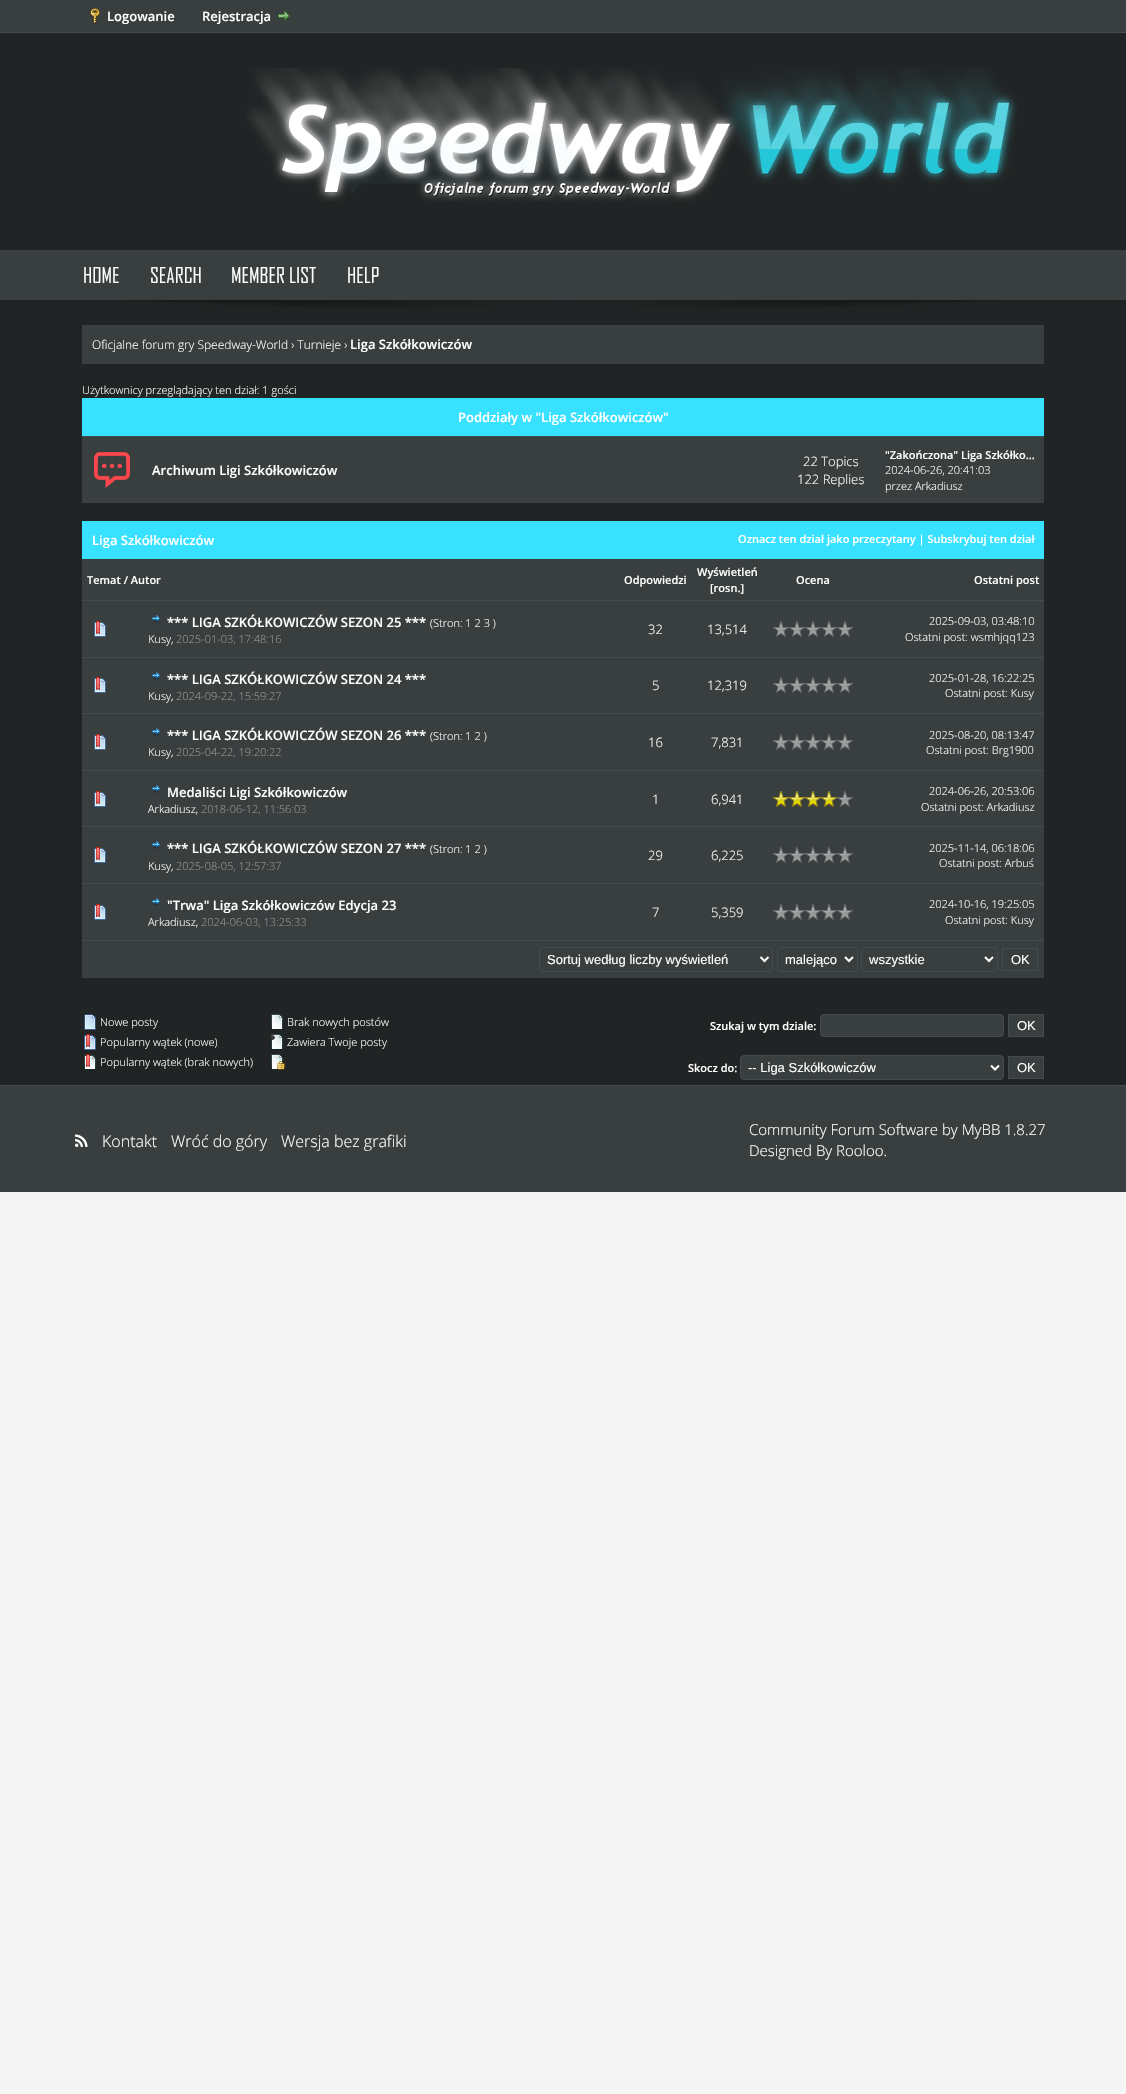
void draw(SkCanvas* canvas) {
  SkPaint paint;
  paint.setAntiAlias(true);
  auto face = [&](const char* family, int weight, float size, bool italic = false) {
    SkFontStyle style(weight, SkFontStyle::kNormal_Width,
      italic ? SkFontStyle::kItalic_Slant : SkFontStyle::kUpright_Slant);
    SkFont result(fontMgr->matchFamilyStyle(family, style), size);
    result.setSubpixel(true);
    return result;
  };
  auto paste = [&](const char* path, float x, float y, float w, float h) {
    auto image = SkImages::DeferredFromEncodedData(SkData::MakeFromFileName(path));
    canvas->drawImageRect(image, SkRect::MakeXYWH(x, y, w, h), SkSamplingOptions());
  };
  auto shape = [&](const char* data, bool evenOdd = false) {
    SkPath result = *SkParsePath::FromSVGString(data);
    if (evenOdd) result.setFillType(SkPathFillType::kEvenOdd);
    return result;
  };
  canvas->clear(0xfff5f5f5);
  {
    const struct { float x, y, w, h; SkColor color; } items[] = {
      {0, 33, 1126, 1052, 0xff212424},
      {0, 0, 1126, 32, 0xff393e3f},
      {0, 32, 1126, 1, 0xff454b4c},
    };
    for (auto [x, y, w, h, color] : items) {
      paint.setColor(color);
      canvas->drawRect(SkRect::MakeXYWH(x, y, w, h), paint);
    }
  }
  paste("img/1.png", 90, 8, 10, 16);
  paste("img/2.png", 278, 11, 12, 10);
  paste("img/3.png", 247, 68, 770, 134);
  paint.setColor(0xff393e3f);
  canvas->drawRect(SkRect::MakeXYWH(0, 250, 1126, 50), paint);
  paste("img/4.png", 0, 300, 1126, 8);
  {
    const struct { float x, y, w, h; SkColor color; } items[] = {
      {82, 325, 962, 39, 0xff393e3f},
      {82, 398, 962, 38, 0xff38e1ff},
      {82, 437, 962, 66, 0xff393e3f},
      {82, 436, 962, 1, 0xff454b4c},
    };
    for (auto [x, y, w, h, color] : items) {
      paint.setColor(color);
      canvas->drawRect(SkRect::MakeXYWH(x, y, w, h), paint);
    }
  }
  paste("img/5.png", 94, 452, 36, 36);
  {
    const struct { float x, y, w, h; SkColor color; } items[] = {
      {82, 521, 962, 38, 0xff38e1ff},
      {82, 559, 962, 41, 0xff393e3f},
      {82, 601, 962, 56, 0xff393e3f},
      {82, 600, 962, 1, 0xff454b4c},
    };
    for (auto [x, y, w, h, color] : items) {
      paint.setColor(color);
      canvas->drawRect(SkRect::MakeXYWH(x, y, w, h), paint);
    }
  }
  paste("img/6.png", 94, 621, 12, 16);
  paste("img/7.png", 152, 615, 8, 8);
  paste("img/8.png", 773, 621, 80, 16);
  paint.setColor(0xff393e3f);
  canvas->drawRect(SkRect::MakeXYWH(82, 658, 962, 55), paint);
  paint.setColor(0xff454b4c);
  canvas->drawRect(SkRect::MakeXYWH(82, 657, 962, 1), paint);
  paste("img/6.png", 94, 677, 12, 16);
  paste("img/7.png", 152, 672, 8, 8);
  paste("img/8.png", 773, 677, 80, 16);
  paint.setColor(0xff393e3f);
  canvas->drawRect(SkRect::MakeXYWH(82, 714, 962, 56), paint);
  paint.setColor(0xff454b4c);
  canvas->drawRect(SkRect::MakeXYWH(82, 713, 962, 1), paint);
  paste("img/6.png", 94, 734, 12, 16);
  paste("img/7.png", 152, 728, 8, 8);
  paste("img/8.png", 773, 734, 80, 16);
  paint.setColor(0xff393e3f);
  canvas->drawRect(SkRect::MakeXYWH(82, 771, 962, 55), paint);
  paint.setColor(0xff454b4c);
  canvas->drawRect(SkRect::MakeXYWH(82, 770, 962, 1), paint);
  paste("img/6.png", 94, 791, 12, 16);
  paste("img/7.png", 152, 785, 8, 8);
  paste("img/8.png", 773, 791, 80, 16);
  paste("img/9.png", 773, 791, 64, 16);
  paint.setColor(0xff393e3f);
  canvas->drawRect(SkRect::MakeXYWH(82, 827, 962, 56), paint);
  paint.setColor(0xff454b4c);
  canvas->drawRect(SkRect::MakeXYWH(82, 826, 962, 1), paint);
  paste("img/6.png", 94, 847, 12, 16);
  paste("img/7.png", 152, 841, 8, 8);
  paste("img/8.png", 773, 847, 80, 16);
  paint.setColor(0xff393e3f);
  canvas->drawRect(SkRect::MakeXYWH(82, 884, 962, 56), paint);
  paint.setColor(0xff454b4c);
  canvas->drawRect(SkRect::MakeXYWH(82, 883, 962, 1), paint);
  paste("img/6.png", 94, 904, 12, 16);
  paste("img/7.png", 152, 898, 8, 8);
  paste("img/8.png", 773, 904, 80, 16);
  paint.setColor(0xff393e3f);
  canvas->drawRect(SkRect::MakeXYWH(82, 941, 962, 37), paint);
  paint.setColor(0xff454b4c);
  canvas->drawRect(SkRect::MakeXYWH(82, 940, 962, 1), paint);
  paint.setStroke(true);
  paint.setStrokeWidth(1);
  canvas->drawRoundRect(SkRect::MakeXYWH(539.5f, 947.5f, 233, 24), 3.5f, 3.5f, paint);
  paint.setStrokeWidth(2);
  paint.setColor(0xffffffff);
  canvas->drawPath(shape("M760.5 957L764.5 961L768.5 957"), paint);
  paint.setStrokeWidth(1);
  paint.setColor(0xff454b4c);
  canvas->drawRoundRect(SkRect::MakeXYWH(777.5f, 947.5f, 80, 24), 3.5f, 3.5f, paint);
  paint.setStrokeWidth(2);
  paint.setColor(0xffffffff);
  canvas->drawPath(shape("M845 957L849 961L853 957"), paint);
  paint.setStrokeWidth(1);
  paint.setColor(0xff454b4c);
  canvas->drawRoundRect(SkRect::MakeXYWH(861.5f, 947.5f, 136, 24), 3.5f, 3.5f, paint);
  paint.setStrokeWidth(2);
  paint.setColor(0xffffffff);
  canvas->drawPath(shape("M985 957L989 961L993 957"), paint);
  paint.setStrokeWidth(1);
  paint.setColor(0xff454b4c);
  canvas->drawRect(SkRect::MakeXYWH(1002.5f, 948.5f, 35, 22), paint);
  paste("img/10.png", 84, 1014, 12, 16);
  paste("img/11.png", 84, 1034, 12, 16);
  paste("img/12.png", 84, 1054, 12, 16);
  paste("img/13.png", 271, 1014, 12, 16);
  paste("img/14.png", 270, 1034, 13, 16);
  paste("img/15.png", 271, 1054, 14, 16);
  paint.setStroke(false);
  paint.setColor(0xff393e3f);
  canvas->drawRoundRect(SkRect::MakeXYWH(820.5f, 1014.5f, 183, 22), 3.5f, 3.5f, paint);
  paint.setStroke(true);
  paint.setColor(0xff454b4c);
  canvas->drawRoundRect(SkRect::MakeXYWH(820.5f, 1014.5f, 183, 22), 3.5f, 3.5f, paint);
  paint.setStroke(false);
  paint.setColor(0xff393e3f);
  canvas->drawRect(SkRect::MakeXYWH(1008.5f, 1014.5f, 35, 22), paint);
  paint.setStroke(true);
  paint.setColor(0xff454b4c);
  canvas->drawRect(SkRect::MakeXYWH(1008.5f, 1014.5f, 35, 22), paint);
  paint.setStroke(false);
  paint.setColor(0xff393e3f);
  canvas->drawRoundRect(SkRect::MakeXYWH(740.5f, 1055.5f, 263, 24), 3.5f, 3.5f, paint);
  paint.setStroke(true);
  paint.setColor(0xff454b4c);
  canvas->drawRoundRect(SkRect::MakeXYWH(740.5f, 1055.5f, 263, 24), 3.5f, 3.5f, paint);
  paint.setStrokeWidth(2);
  paint.setColor(0xffffffff);
  canvas->drawPath(shape("M991 1065.5L995 1069.5L999 1065.5"), paint);
  paint.setStroke(false);
  paint.setColor(0xff393e3f);
  canvas->drawRect(SkRect::MakeXYWH(1008.5f, 1056.5f, 35, 22), paint);
  paint.setStroke(true);
  paint.setStrokeWidth(1);
  paint.setColor(0xff454b4c);
  canvas->drawRect(SkRect::MakeXYWH(1008.5f, 1056.5f, 35, 22), paint);
  paint.setStroke(false);
  paint.setColor(0xff393e3f);
  canvas->drawRect(SkRect::MakeXYWH(0, 1086, 1126, 106), paint);
  paint.setColor(0xff454b4c);
  canvas->drawRect(SkRect::MakeXYWH(0, 1085, 1126, 1), paint);
  paste("img/16.png", 75, 1134, 13, 13);
  auto f0 = face("Open Sans", 600, 13);
  paint.setColor(0xffffffff);
  canvas->drawString("Logowanie", 107, 21, f0, paint);
  canvas->drawString("Rejestracja", 202, 21, f0, paint);
  auto f1 = face("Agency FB", 400, 21);
  {
    const struct { const char* s; float x, y; } items[] = {
      {"HOME", 83, 283},
      {"SEARCH", 150, 283},
      {"MEMBER LIST", 231, 283},
      {"HELP", 347, 283},
    };
    for (auto [s, x, y] : items) {
      canvas->drawString(s, x, y, f1, paint);
    }
  }
  auto f2 = face("Open Sans", 300, 12);
  canvas->drawString("Oficjalne forum gry Speedway-World › Turnieje ›", 92, 349, f2, paint);
  canvas->drawString("Liga Szkółkowiczów", 350, 349, f0, paint);
  auto f3 = face("Open Sans", 300, 11);
  canvas->drawString("Użytkownicy przeglądający ten dział: 1 gości", 82, 394, f3, paint);
  canvas->drawString("Poddziały w \"Liga Szkółkowiczów\"", 458, 422, f0, paint);
  canvas->drawString("Archiwum Ligi Szkółkowiczów", 152, 475, f0, paint);
  auto f4 = face("Open Sans", 300, 13);
  canvas->drawString("22 Topics", 803, 466, f4, paint);
  canvas->drawString("122 Replies", 797, 484, f4, paint);
  auto f5 = face("Open Sans", 600, 11);
  canvas->drawString("\"Zakończona\" Liga Szkółko...", 885, 459, f5, paint);
  canvas->drawString("2024-06-26, 20:41:03", 885, 474, f3, paint);
  canvas->drawString("przez Arkadiusz", 885, 490, f3, paint);
  canvas->drawString("Liga Szkółkowiczów", 92, 545, f0, paint);
  {
    const struct { const char* s; float x, y; } items[] = {
      {"Oznacz ten dział jako przeczytany | Subskrybuj ten dział", 738, 543},
      {"Temat / Autor", 87, 584},
      {"Odpowiedzi", 624, 584},
      {"Wyświetleń", 697, 576},
      {"[rosn.]", 710, 592},
      {"Ocena", 796, 584},
      {"Ostatni post", 974, 584},
    };
    for (auto [s, x, y] : items) {
      canvas->drawString(s, x, y, f5, paint);
    }
  }
  canvas->drawString("*** LIGA SZKÓŁKOWICZÓW SEZON 25 ***", 167, 627, f0, paint);
  canvas->drawString("(Stron: 1 2 3 )", 430, 627, f3, paint);
  canvas->drawString("Kusy,", 148, 643, f3, paint);
  paint.setColor(0xff999999);
  canvas->drawString("2025-01-03, 17:48:16", 176, 643, f3, paint);
  paint.setColor(0xffffffff);
  canvas->drawString("32", 648, 634, f4, paint);
  canvas->drawString("13,514", 707, 634, f4, paint);
  canvas->drawString("2025-09-03, 03:48:10", 929, 625, f3, paint);
  canvas->drawString("Ostatni post: wsmhjqq123", 905, 641, f3, paint);
  canvas->drawString("*** LIGA SZKÓŁKOWICZÓW SEZON 24 ***", 167, 684, f0, paint);
  canvas->drawString("Kusy,", 148, 700, f3, paint);
  paint.setColor(0xff999999);
  canvas->drawString("2024-09-22, 15:59:27", 176, 700, f3, paint);
  paint.setColor(0xffffffff);
  canvas->drawString("5", 652, 690, f4, paint);
  canvas->drawString("12,319", 707, 690, f4, paint);
  canvas->drawString("2025-01-28, 16:22:25", 929, 682, f3, paint);
  canvas->drawString("Ostatni post: Kusy", 945, 697, f3, paint);
  canvas->drawString("*** LIGA SZKÓŁKOWICZÓW SEZON 26 ***", 167, 740, f0, paint);
  canvas->drawString("(Stron: 1 2 )", 430, 740, f3, paint);
  canvas->drawString("Kusy,", 148, 756, f3, paint);
  paint.setColor(0xff999999);
  canvas->drawString("2025-04-22, 19:20:22", 176, 756, f3, paint);
  paint.setColor(0xffffffff);
  canvas->drawString("16", 648, 747, f4, paint);
  canvas->drawString("7,831", 711, 747, f4, paint);
  canvas->drawString("2025-08-20, 08:13:47", 929, 739, f3, paint);
  canvas->drawString("Ostatni post: Brg1900", 926, 754, f3, paint);
  canvas->drawString("Medaliści Ligi Szkółkowiczów", 167, 797, f0, paint);
  canvas->drawString("Arkadiusz,", 148, 813, f3, paint);
  paint.setColor(0xff999999);
  canvas->drawString("2018-06-12, 11:56:03", 201, 813, f3, paint);
  paint.setColor(0xffffffff);
  canvas->drawString("1", 652, 804, f4, paint);
  canvas->drawString("6,941", 711, 804, f4, paint);
  canvas->drawString("2024-06-26, 20:53:06", 929, 795, f3, paint);
  canvas->drawString("Ostatni post: Arkadiusz", 921, 811, f3, paint);
  canvas->drawString("*** LIGA SZKÓŁKOWICZÓW SEZON 27 ***", 167, 853, f0, paint);
  canvas->drawString("(Stron: 1 2 )", 430, 853, f3, paint);
  canvas->drawString("Kusy,", 148, 870, f3, paint);
  paint.setColor(0xff999999);
  canvas->drawString("2025-08-05, 12:57:37", 176, 870, f3, paint);
  paint.setColor(0xffffffff);
  canvas->drawString("29", 648, 860, f4, paint);
  canvas->drawString("6,225", 711, 860, f4, paint);
  canvas->drawString("2025-11-14, 06:18:06", 929, 852, f3, paint);
  canvas->drawString("Ostatni post: Arbuś", 939, 867, f3, paint);
  canvas->drawString("\"Trwa\" Liga Szkółkowiczów Edycja 23", 167, 910, f0, paint);
  canvas->drawString("Arkadiusz,", 148, 926, f3, paint);
  paint.setColor(0xff999999);
  canvas->drawString("2024-06-03, 13:25:33", 201, 926, f3, paint);
  paint.setColor(0xffffffff);
  canvas->drawString("7", 652, 917, f4, paint);
  canvas->drawString("5,359", 711, 917, f4, paint);
  canvas->drawString("2024-10-16, 19:25:05", 929, 908, f3, paint);
  canvas->drawString("Ostatni post: Kusy", 945, 924, f3, paint);
  auto f6 = face("Liberation Sans", 400, 13);
  {
    const struct { const char* s; float x, y; } items[] = {
      {"Sortuj według liczby wyświetleń", 547, 964},
      {"malejąco", 785, 964},
      {"wszystkie", 869, 964},
      {"OK", 1011, 964},
    };
    for (auto [s, x, y] : items) {
      canvas->drawString(s, x, y, f6, paint);
    }
  }
  {
    const struct { const char* s; float x, y; } items[] = {
      {"Nowe posty", 100, 1026},
      {"Popularny wątek (nowe)", 100, 1046},
      {"Popularny wątek (brak nowych)", 100, 1066},
      {"Brak nowych postów", 287, 1026},
      {"Zawiera Twoje posty", 287, 1046},
    };
    for (auto [s, x, y] : items) {
      canvas->drawString(s, x, y, f3, paint);
    }
  }
  canvas->drawString("Szukaj w tym dziale:", 710, 1030, f5, paint);
  canvas->drawString("OK", 1017, 1030, f6, paint);
  canvas->drawString("Skocz do:", 688, 1072, f5, paint);
  canvas->drawString("-- Liga Szkółkowiczów", 748, 1072, f6, paint);
  canvas->drawString("OK", 1017, 1072, f6, paint);
  auto f7 = face("Open Sans", 300, 16);
  {
    const struct { const char* s; float x, y; } items[] = {
      {"Kontakt", 102, 1147},
      {"Wróć do góry", 171, 1147},
      {"Wersja bez grafiki", 281, 1147},
    };
    for (auto [s, x, y] : items) {
      canvas->drawString(s, x, y, f7, paint);
    }
  }
  auto f8 = face("Open Sans", 300, 15);
  canvas->drawString("Community Forum Software by MyBB 1.8.27", 749, 1135, f8, paint);
  canvas->drawString("Designed By Rooloo.", 749, 1156, f8, paint);
}
